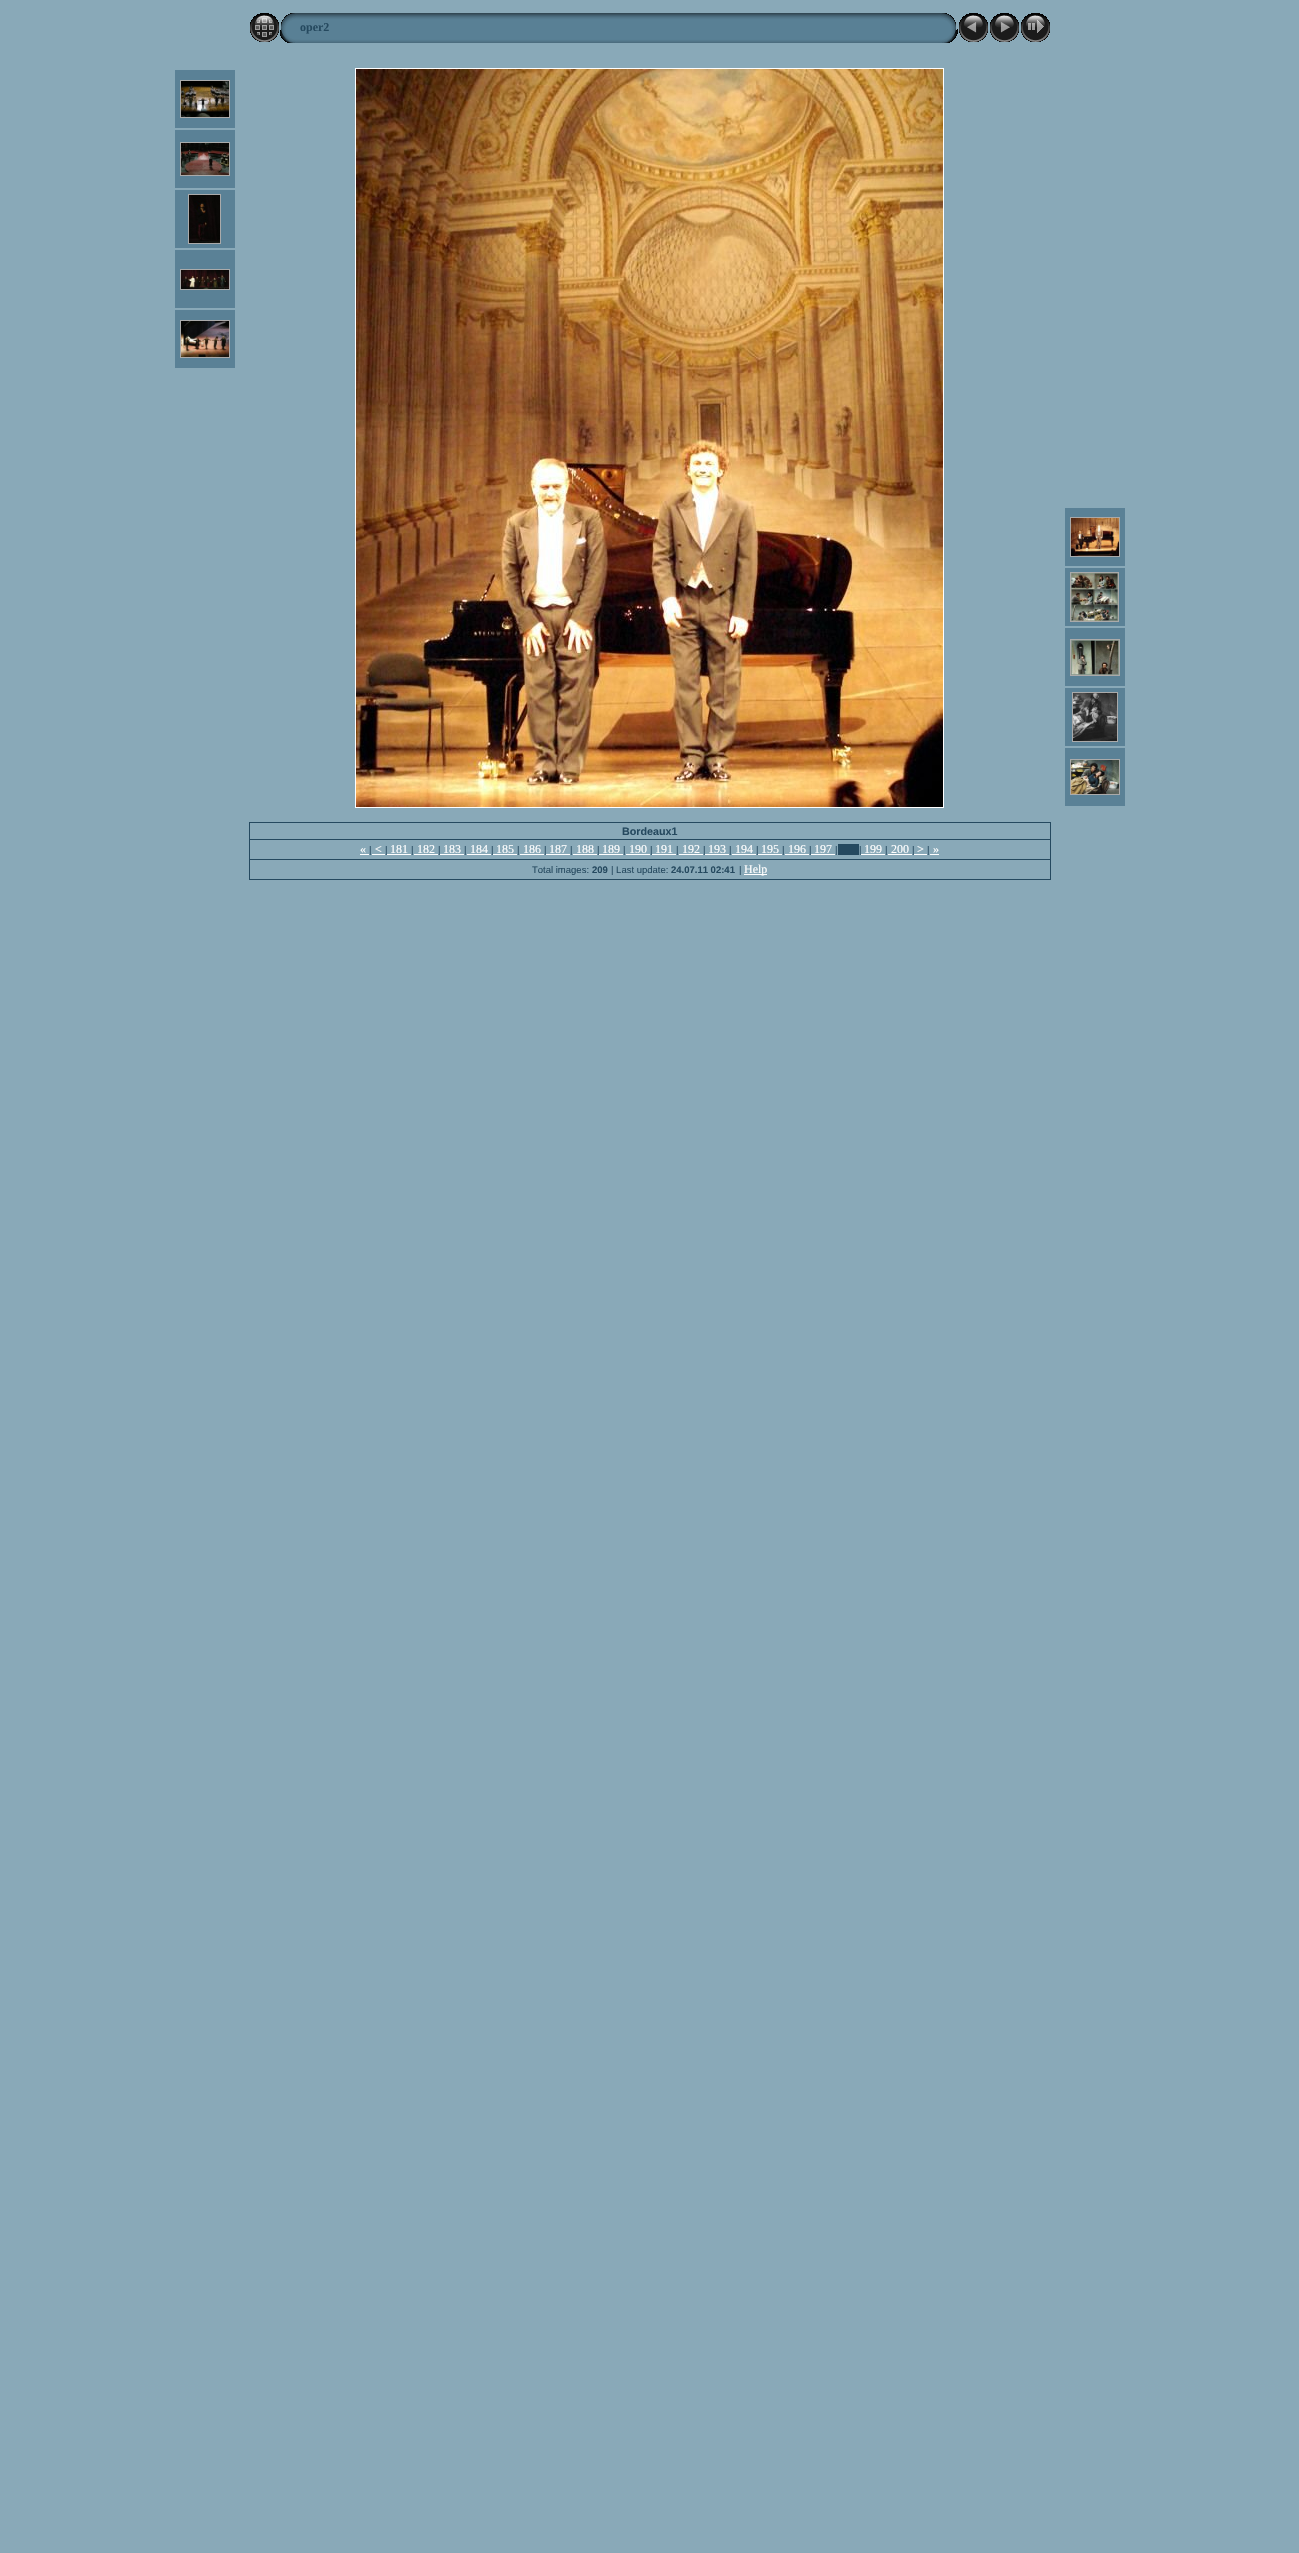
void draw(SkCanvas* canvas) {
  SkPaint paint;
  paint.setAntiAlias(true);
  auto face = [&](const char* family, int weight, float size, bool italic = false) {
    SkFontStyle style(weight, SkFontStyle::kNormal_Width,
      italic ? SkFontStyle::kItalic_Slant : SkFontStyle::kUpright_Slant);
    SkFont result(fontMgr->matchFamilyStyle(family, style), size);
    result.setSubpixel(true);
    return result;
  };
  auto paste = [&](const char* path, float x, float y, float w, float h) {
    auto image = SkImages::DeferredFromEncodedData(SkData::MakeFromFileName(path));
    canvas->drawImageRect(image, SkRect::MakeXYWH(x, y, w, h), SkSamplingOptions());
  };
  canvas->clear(0xff89a9b8);
  paste("img/1.png", 250, 13, 29, 29);
  paste("img/2.png", 280, 13, 20, 30);
  paste("img/3.png", 300, 13, 638, 30);
  paste("img/4.png", 938, 13, 20, 30);
  paste("img/5.png", 959, 13, 29, 29);
  paste("img/6.png", 990, 13, 29, 29);
  paste("img/7.png", 1021, 13, 29, 29);
  paint.setColor(0xff5a8196);
  canvas->drawRect(SkRect::MakeXYWH(175, 70, 60, 58), paint);
  paint.setStroke(true);
  paint.setStrokeWidth(1);
  paint.setColor(0xffaaaaaa);
  canvas->drawRect(SkRect::MakeXYWH(180.5f, 80.5f, 49, 37), paint);
  paste("img/8.png", 181, 81, 48, 36);
  paint.setStroke(false);
  paint.setColor(0xff5a8196);
  canvas->drawRect(SkRect::MakeXYWH(175, 130, 60, 58), paint);
  paint.setStroke(true);
  paint.setColor(0xffaaaaaa);
  canvas->drawRect(SkRect::MakeXYWH(180.5f, 142.5f, 49, 33), paint);
  paste("img/9.png", 181, 143, 48, 32);
  paint.setStroke(false);
  paint.setColor(0xff5a8196);
  canvas->drawRect(SkRect::MakeXYWH(175, 190, 60, 58), paint);
  paint.setStroke(true);
  paint.setColor(0xffaaaaaa);
  canvas->drawRect(SkRect::MakeXYWH(188.5f, 194.5f, 32, 49), paint);
  paste("img/10.png", 189, 195, 31, 48);
  paint.setStroke(false);
  paint.setColor(0xff5a8196);
  canvas->drawRect(SkRect::MakeXYWH(175, 250, 60, 58), paint);
  paint.setStroke(true);
  paint.setColor(0xffaaaaaa);
  canvas->drawRect(SkRect::MakeXYWH(180.5f, 269.5f, 49, 20), paint);
  paste("img/11.png", 181, 270, 48, 19);
  paint.setStroke(false);
  paint.setColor(0xff5a8196);
  canvas->drawRect(SkRect::MakeXYWH(175, 310, 60, 58), paint);
  paint.setStroke(true);
  paint.setColor(0xffaaaaaa);
  canvas->drawRect(SkRect::MakeXYWH(180.5f, 320.5f, 49, 37), paint);
  paste("img/12.png", 181, 321, 48, 36);
  paint.setColor(0xffffffff);
  canvas->drawRect(SkRect::MakeXYWH(355.5f, 68.5f, 588, 739), paint);
  paste("img/13.png", 356, 69, 587, 738);
  paint.setStroke(false);
  paint.setColor(0xff5a8196);
  canvas->drawRect(SkRect::MakeXYWH(1065, 508, 60, 58), paint);
  paint.setStroke(true);
  paint.setColor(0xffaaaaaa);
  canvas->drawRect(SkRect::MakeXYWH(1070.5f, 517.5f, 49, 39), paint);
  paste("img/14.png", 1071, 518, 48, 38);
  paint.setStroke(false);
  paint.setColor(0xff5a8196);
  canvas->drawRect(SkRect::MakeXYWH(1065, 568, 60, 58), paint);
  paint.setStroke(true);
  paint.setColor(0xffaaaaaa);
  canvas->drawRect(SkRect::MakeXYWH(1070.5f, 572.5f, 48, 49), paint);
  paste("img/15.png", 1071, 573, 47, 48);
  paint.setStroke(false);
  paint.setColor(0xff5a8196);
  canvas->drawRect(SkRect::MakeXYWH(1065, 628, 60, 58), paint);
  paint.setStroke(true);
  paint.setColor(0xffaaaaaa);
  canvas->drawRect(SkRect::MakeXYWH(1070.5f, 639.5f, 49, 36), paint);
  paste("img/16.png", 1071, 640, 48, 35);
  paint.setStroke(false);
  paint.setColor(0xff5a8196);
  canvas->drawRect(SkRect::MakeXYWH(1065, 688, 60, 58), paint);
  paint.setStroke(true);
  paint.setColor(0xffaaaaaa);
  canvas->drawRect(SkRect::MakeXYWH(1072.5f, 692.5f, 45, 49), paint);
  paste("img/17.png", 1073, 693, 44, 48);
  paint.setStroke(false);
  paint.setColor(0xff5a8196);
  canvas->drawRect(SkRect::MakeXYWH(1065, 748, 60, 58), paint);
  paint.setStroke(true);
  paint.setColor(0xffaaaaaa);
  canvas->drawRect(SkRect::MakeXYWH(1070.5f, 759.5f, 49, 35), paint);
  paste("img/18.png", 1071, 760, 48, 34);
  paint.setStroke(false);
  {
    const struct { float x, y, w, h; SkColor color; } items[] = {
      {249, 822, 802, 1, 0xff25495f},
      {1050, 822, 1, 58, 0xff25495f},
      {249, 879, 802, 1, 0xff25495f},
      {249, 822, 1, 58, 0xff25495f},
      {249, 839, 802, 1, 0xff25495f},
      {360, 854, 9, 1, 0xffffffff},
      {372, 854, 13, 1, 0xffffffff},
      {387, 854, 24, 1, 0xffffffff},
      {414, 854, 24, 1, 0xffffffff},
      {440, 854, 24, 1, 0xffffffff},
      {467, 854, 24, 1, 0xffffffff},
      {493, 854, 24, 1, 0xffffffff},
      {520, 854, 24, 1, 0xffffffff},
      {546, 854, 24, 1, 0xffffffff},
      {573, 854, 24, 1, 0xffffffff},
      {599, 854, 24, 1, 0xffffffff},
      {626, 854, 24, 1, 0xffffffff},
      {652, 854, 24, 1, 0xffffffff},
      {679, 854, 24, 1, 0xffffffff},
      {705, 854, 24, 1, 0xffffffff},
      {732, 854, 24, 1, 0xffffffff},
      {758, 854, 24, 1, 0xffffffff},
      {785, 854, 24, 1, 0xffffffff},
      {811, 854, 24, 1, 0xffffffff},
      {838, 844, 21, 11, 0xff25495f},
      {861, 854, 24, 1, 0xffffffff},
      {888, 854, 24, 1, 0xffffffff},
      {914, 854, 13, 1, 0xffffffff},
      {930, 854, 9, 1, 0xffffffff},
      {249, 859, 802, 1, 0xff25495f},
      {744, 874, 23, 1, 0xffffffff},
    };
    for (auto [x, y, w, h, color] : items) {
      paint.setColor(color);
      canvas->drawRect(SkRect::MakeXYWH(x, y, w, h), paint);
    }
  }
  auto f0 = face("Liberation Serif", 700, 12);
  paint.setColor(0xff25495f);
  canvas->drawString("oper2", 300, 31, f0, paint);
  auto f1 = face("Liberation Sans", 700, 10.75f);
  canvas->drawString("Bordeaux1", 622, 835, f1, paint);
  auto f2 = face("Liberation Serif", 400, 12);
  paint.setColor(0xffffffff);
  canvas->drawString("«", 360, 853, f2, paint);
  auto f3 = face("Liberation Sans", 400, 9.5f);
  paint.setColor(0xff25495f);
  canvas->drawString("|", 369, 853, f3, paint);
  paint.setColor(0xffffffff);
  canvas->drawString("<", 375, 853, f2, paint);
  paint.setColor(0xff25495f);
  canvas->drawString("|", 385, 853, f3, paint);
  paint.setColor(0xffffffff);
  canvas->drawString("181", 390, 853, f2, paint);
  paint.setColor(0xff25495f);
  canvas->drawString("|", 411, 853, f3, paint);
  paint.setColor(0xffffffff);
  canvas->drawString("182", 417, 853, f2, paint);
  paint.setColor(0xff25495f);
  canvas->drawString("|", 438, 853, f3, paint);
  paint.setColor(0xffffffff);
  canvas->drawString("183", 443, 853, f2, paint);
  paint.setColor(0xff25495f);
  canvas->drawString("|", 464, 853, f3, paint);
  paint.setColor(0xffffffff);
  canvas->drawString("184", 470, 853, f2, paint);
  paint.setColor(0xff25495f);
  canvas->drawString("|", 491, 853, f3, paint);
  paint.setColor(0xffffffff);
  canvas->drawString("185", 496, 853, f2, paint);
  paint.setColor(0xff25495f);
  canvas->drawString("|", 517, 853, f3, paint);
  paint.setColor(0xffffffff);
  canvas->drawString("186", 523, 853, f2, paint);
  paint.setColor(0xff25495f);
  canvas->drawString("|", 544, 853, f3, paint);
  paint.setColor(0xffffffff);
  canvas->drawString("187", 549, 853, f2, paint);
  paint.setColor(0xff25495f);
  canvas->drawString("|", 570, 853, f3, paint);
  paint.setColor(0xffffffff);
  canvas->drawString("188", 576, 853, f2, paint);
  paint.setColor(0xff25495f);
  canvas->drawString("|", 597, 853, f3, paint);
  paint.setColor(0xffffffff);
  canvas->drawString("189", 602, 853, f2, paint);
  paint.setColor(0xff25495f);
  canvas->drawString("|", 623, 853, f3, paint);
  paint.setColor(0xffffffff);
  canvas->drawString("190", 629, 853, f2, paint);
  paint.setColor(0xff25495f);
  canvas->drawString("|", 650, 853, f3, paint);
  paint.setColor(0xffffffff);
  canvas->drawString("191", 655, 853, f2, paint);
  paint.setColor(0xff25495f);
  canvas->drawString("|", 676, 853, f3, paint);
  paint.setColor(0xffffffff);
  canvas->drawString("192", 682, 853, f2, paint);
  paint.setColor(0xff25495f);
  canvas->drawString("|", 703, 853, f3, paint);
  paint.setColor(0xffffffff);
  canvas->drawString("193", 708, 853, f2, paint);
  paint.setColor(0xff25495f);
  canvas->drawString("|", 729, 853, f3, paint);
  paint.setColor(0xffffffff);
  canvas->drawString("194", 735, 853, f2, paint);
  paint.setColor(0xff25495f);
  canvas->drawString("|", 756, 853, f3, paint);
  paint.setColor(0xffffffff);
  canvas->drawString("195", 761, 853, f2, paint);
  paint.setColor(0xff25495f);
  canvas->drawString("|", 782, 853, f3, paint);
  paint.setColor(0xffffffff);
  canvas->drawString("196", 788, 853, f2, paint);
  paint.setColor(0xff25495f);
  canvas->drawString("|", 809, 853, f3, paint);
  paint.setColor(0xffffffff);
  canvas->drawString("197", 814, 853, f2, paint);
  paint.setColor(0xff25495f);
  canvas->drawString("|", 835, 853, f3, paint);
  canvas->drawString("|", 859, 853, f3, paint);
  paint.setColor(0xffffffff);
  canvas->drawString("199", 864, 853, f2, paint);
  paint.setColor(0xff25495f);
  canvas->drawString("|", 885, 853, f3, paint);
  paint.setColor(0xffffffff);
  canvas->drawString("200", 891, 853, f2, paint);
  paint.setColor(0xff25495f);
  canvas->drawString("|", 912, 853, f3, paint);
  paint.setColor(0xffffffff);
  canvas->drawString(">", 917, 853, f2, paint);
  paint.setColor(0xff25495f);
  canvas->drawString("|", 927, 853, f3, paint);
  paint.setColor(0xffffffff);
  canvas->drawString("»", 933, 853, f2, paint);
  paint.setColor(0xff25495f);
  canvas->drawString("Total images:", 532, 873, f3, paint);
  auto f4 = face("Liberation Sans", 700, 9.5f);
  canvas->drawString("209", 592, 873, f4, paint);
  canvas->drawString("| Last update:", 611, 873, f3, paint);
  canvas->drawString("24.07.11 02:41", 671, 873, f4, paint);
  canvas->drawString("|", 739, 873, f3, paint);
  paint.setColor(0xffffffff);
  canvas->drawString("Help", 744, 873, f2, paint);
}
